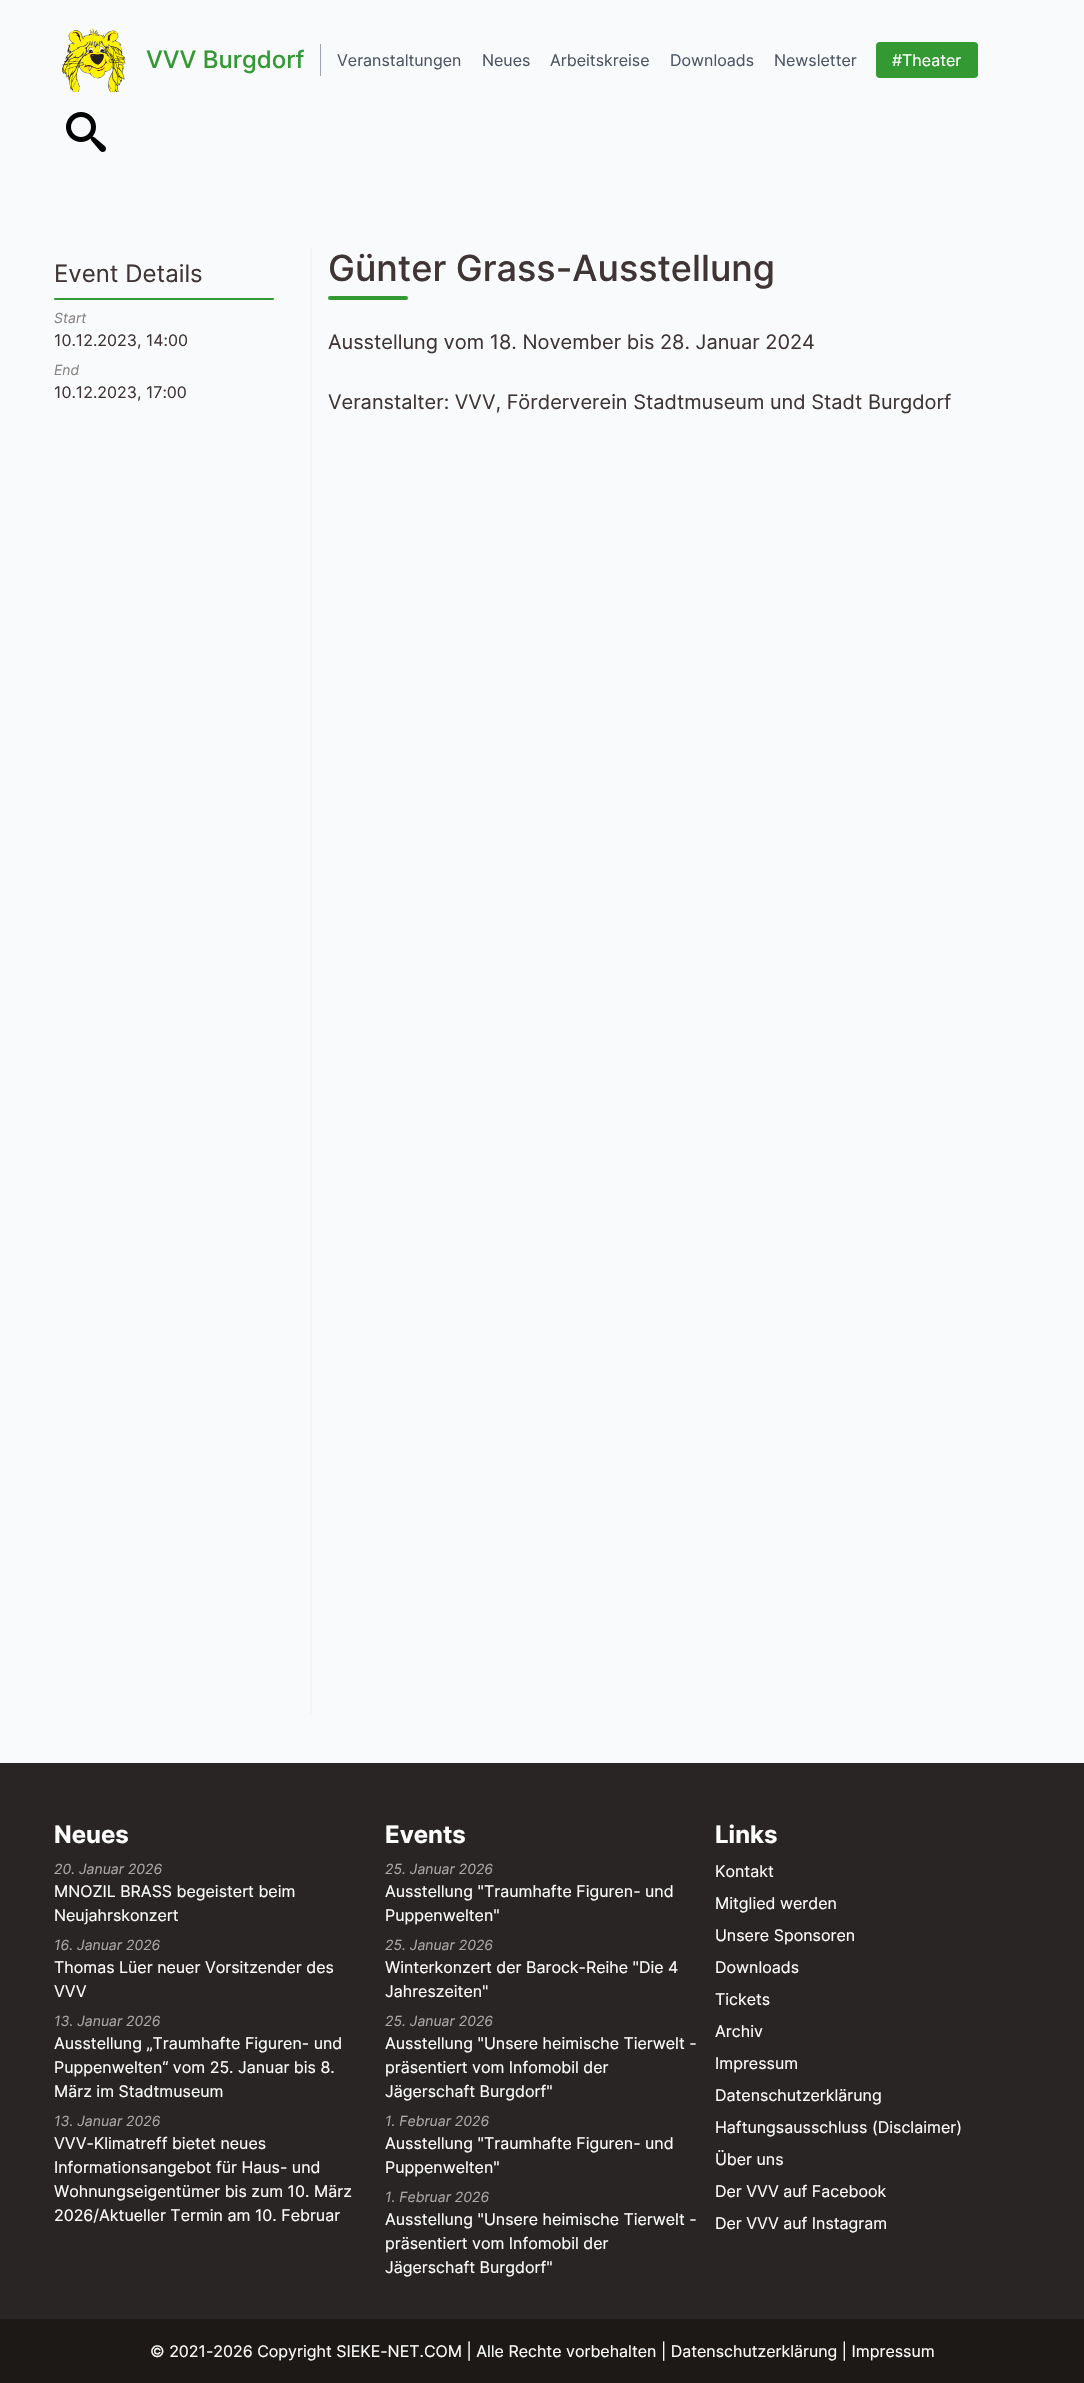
void draw(SkCanvas* canvas) {
  SkPaint paint;
  paint.setAntiAlias(true);
  auto face = [&](const char* family, int weight, float size, bool italic = false) {
    SkFontStyle style(weight, SkFontStyle::kNormal_Width,
      italic ? SkFontStyle::kItalic_Slant : SkFontStyle::kUpright_Slant);
    SkFont result(fontMgr->matchFamilyStyle(family, style), size);
    result.setSubpixel(true);
    return result;
  };
  auto paste = [&](const char* path, float x, float y, float w, float h) {
    auto image = SkImages::DeferredFromEncodedData(SkData::MakeFromFileName(path));
    canvas->drawImageRect(image, SkRect::MakeXYWH(x, y, w, h), SkSamplingOptions());
  };
  canvas->clear(0xfff9fafb);
  paste("img/1.png", 62, 28, 64, 64);
  paint.setColor(0xff9ca3af);
  canvas->drawRect(SkRect::MakeXYWH(320, 44, 1, 32), paint);
  paint.setColor(0xff339933);
  canvas->drawRoundRect(SkRect::MakeXYWH(876, 42, 102, 36), 4, 4, paint);
  paste("img/2.png", 66, 112, 40, 40);
  canvas->drawRoundRect(SkRect::MakeXYWH(54, 298, 220, 2), 1, 1, paint);
  paint.setColor(0xfff3f4f6);
  canvas->drawRect(SkRect::MakeXYWH(310, 248, 2, 1467), paint);
  paint.setColor(0xff339933);
  canvas->drawRoundRect(SkRect::MakeXYWH(328, 296, 80, 4), 2, 2, paint);
  paint.setColor(0xff292524);
  canvas->drawRect(SkRect::MakeXYWH(0, 1763, 1084, 556), paint);
  paint.setColor(0xff1c1917);
  canvas->drawRect(SkRect::MakeXYWH(0, 2319, 1084, 64), paint);
  auto f0 = face("Inter", 500, 24);
  paint.setColor(0xff339933);
  canvas->drawString("VVV Burgdorf", 146, 68, f0, paint);
  auto f1 = face("Inter", 400, 16);
  paint.setColor(0xff4b5563);
  {
    const struct { const char* s; float x, y; } items[] = {
      {"Veranstaltungen", 337, 66},
      {"Neues", 482, 66},
      {"Arbeitskreise", 550, 66},
      {"Downloads", 670, 66},
      {"Newsletter", 774, 66},
    };
    for (auto [s, x, y] : items) {
      canvas->drawString(s, x, y, f1, paint);
    }
  }
  paint.setColor(0xffffffff);
  canvas->drawString("#Theater", 892, 66, f1, paint);
  auto f2 = face("Inter", 400, 24);
  paint.setColor(0xff3f3535);
  canvas->drawString("Event Details", 54, 282, f2, paint);
  auto f3 = face("Inter", 400, 14, true);
  paint.setColor(0xff898484);
  canvas->drawString("Start", 54, 323, f3, paint);
  paint.setColor(0xff3f3535);
  canvas->drawString("10.12.2023, 14:00", 54, 346, f1, paint);
  paint.setColor(0xff898484);
  canvas->drawString("End", 54, 375, f3, paint);
  paint.setColor(0xff3f3535);
  canvas->drawString("10.12.2023, 17:00", 54, 398, f1, paint);
  auto f4 = face("Inter", 500, 36);
  canvas->drawString("Günter Grass-Ausstellung", 328, 281, f4, paint);
  auto f5 = face("Inter", 400, 20);
  canvas->drawString("Ausstellung vom 18. November bis 28. Januar 2024", 328, 349, f5, paint);
  canvas->drawString("Veranstalter: VVV, Förderverein Stadtmuseum und Stadt Burgdorf", 328, 409, f5, paint);
  auto f6 = face("Inter", 700, 24);
  paint.setColor(0xffffffff);
  canvas->drawString("Neues", 54, 1843, f6, paint);
  paint.setColor(0xffa9a8a7);
  canvas->drawString("20. Januar 2026", 54, 1874, f3, paint);
  paint.setColor(0xffffffff);
  canvas->drawString("MNOZIL BRASS begeistert beim", 54, 1897, f1, paint);
  canvas->drawString("Neujahrskonzert", 54, 1921, f1, paint);
  paint.setColor(0xffa9a8a7);
  canvas->drawString("16. Januar 2026", 54, 1950, f3, paint);
  paint.setColor(0xffffffff);
  canvas->drawString("Thomas Lüer neuer Vorsitzender des", 54, 1973, f1, paint);
  canvas->drawString("VVV", 54, 1997, f1, paint);
  paint.setColor(0xffa9a8a7);
  canvas->drawString("13. Januar 2026", 54, 2026, f3, paint);
  paint.setColor(0xffffffff);
  {
    const struct { const char* s; float x, y; } items[] = {
      {"Ausstellung „Traumhafte Figuren- und", 54, 2049},
      {"Puppenwelten“ vom 25. Januar bis 8.", 54, 2073},
      {"März im Stadtmuseum", 54, 2097},
    };
    for (auto [s, x, y] : items) {
      canvas->drawString(s, x, y, f1, paint);
    }
  }
  paint.setColor(0xffa9a8a7);
  canvas->drawString("13. Januar 2026", 54, 2126, f3, paint);
  paint.setColor(0xffffffff);
  {
    const struct { const char* s; float x, y; } items[] = {
      {"VVV-Klimatreff bietet neues", 54, 2149},
      {"Informationsangebot für Haus- und", 54, 2173},
      {"Wohnungseigentümer bis zum 10. März", 54, 2197},
      {"2026/Aktueller Termin am 10. Februar", 54, 2221},
    };
    for (auto [s, x, y] : items) {
      canvas->drawString(s, x, y, f1, paint);
    }
  }
  canvas->drawString("Events", 385, 1843, f6, paint);
  paint.setColor(0xffa9a8a7);
  canvas->drawString("25. Januar 2026", 385, 1874, f3, paint);
  paint.setColor(0xffffffff);
  canvas->drawString("Ausstellung \"Traumhafte Figuren- und", 385, 1897, f1, paint);
  canvas->drawString("Puppenwelten\"", 385, 1921, f1, paint);
  paint.setColor(0xffa9a8a7);
  canvas->drawString("25. Januar 2026", 385, 1950, f3, paint);
  paint.setColor(0xffffffff);
  canvas->drawString("Winterkonzert der Barock-Reihe \"Die 4", 385, 1973, f1, paint);
  canvas->drawString("Jahreszeiten\"", 385, 1997, f1, paint);
  paint.setColor(0xffa9a8a7);
  canvas->drawString("25. Januar 2026", 385, 2026, f3, paint);
  paint.setColor(0xffffffff);
  {
    const struct { const char* s; float x, y; } items[] = {
      {"Ausstellung \"Unsere heimische Tierwelt -", 385, 2049},
      {"präsentiert vom Infomobil der", 385, 2073},
      {"Jägerschaft Burgdorf\"", 385, 2097},
    };
    for (auto [s, x, y] : items) {
      canvas->drawString(s, x, y, f1, paint);
    }
  }
  paint.setColor(0xffa9a8a7);
  canvas->drawString("1. Februar 2026", 385, 2126, f3, paint);
  paint.setColor(0xffffffff);
  canvas->drawString("Ausstellung \"Traumhafte Figuren- und", 385, 2149, f1, paint);
  canvas->drawString("Puppenwelten\"", 385, 2173, f1, paint);
  paint.setColor(0xffa9a8a7);
  canvas->drawString("1. Februar 2026", 385, 2202, f3, paint);
  paint.setColor(0xffffffff);
  {
    const struct { const char* s; float x, y; } items[] = {
      {"Ausstellung \"Unsere heimische Tierwelt -", 385, 2225},
      {"präsentiert vom Infomobil der", 385, 2249},
      {"Jägerschaft Burgdorf\"", 385, 2273},
    };
    for (auto [s, x, y] : items) {
      canvas->drawString(s, x, y, f1, paint);
    }
  }
  canvas->drawString("Links", 715, 1843, f6, paint);
  {
    const struct { const char* s; float x, y; } items[] = {
      {"Kontakt", 715, 1877},
      {"Mitglied werden", 715, 1909},
      {"Unsere Sponsoren", 715, 1941},
      {"Downloads", 715, 1973},
      {"Tickets", 715, 2005},
      {"Archiv", 715, 2037},
      {"Impressum", 715, 2069},
      {"Datenschutzerklärung", 715, 2101},
      {"Haftungsausschluss (Disclaimer)", 715, 2133},
      {"Über uns", 715, 2165},
      {"Der VVV auf Facebook", 715, 2197},
      {"Der VVV auf Instagram", 715, 2229},
      {"© 2021-2026 Copyright SIEKE-NET.COM | Alle Rechte vorbehalten | Datenschutzerklärung | Impressum", 150, 2357},
    };
    for (auto [s, x, y] : items) {
      canvas->drawString(s, x, y, f1, paint);
    }
  }
}
